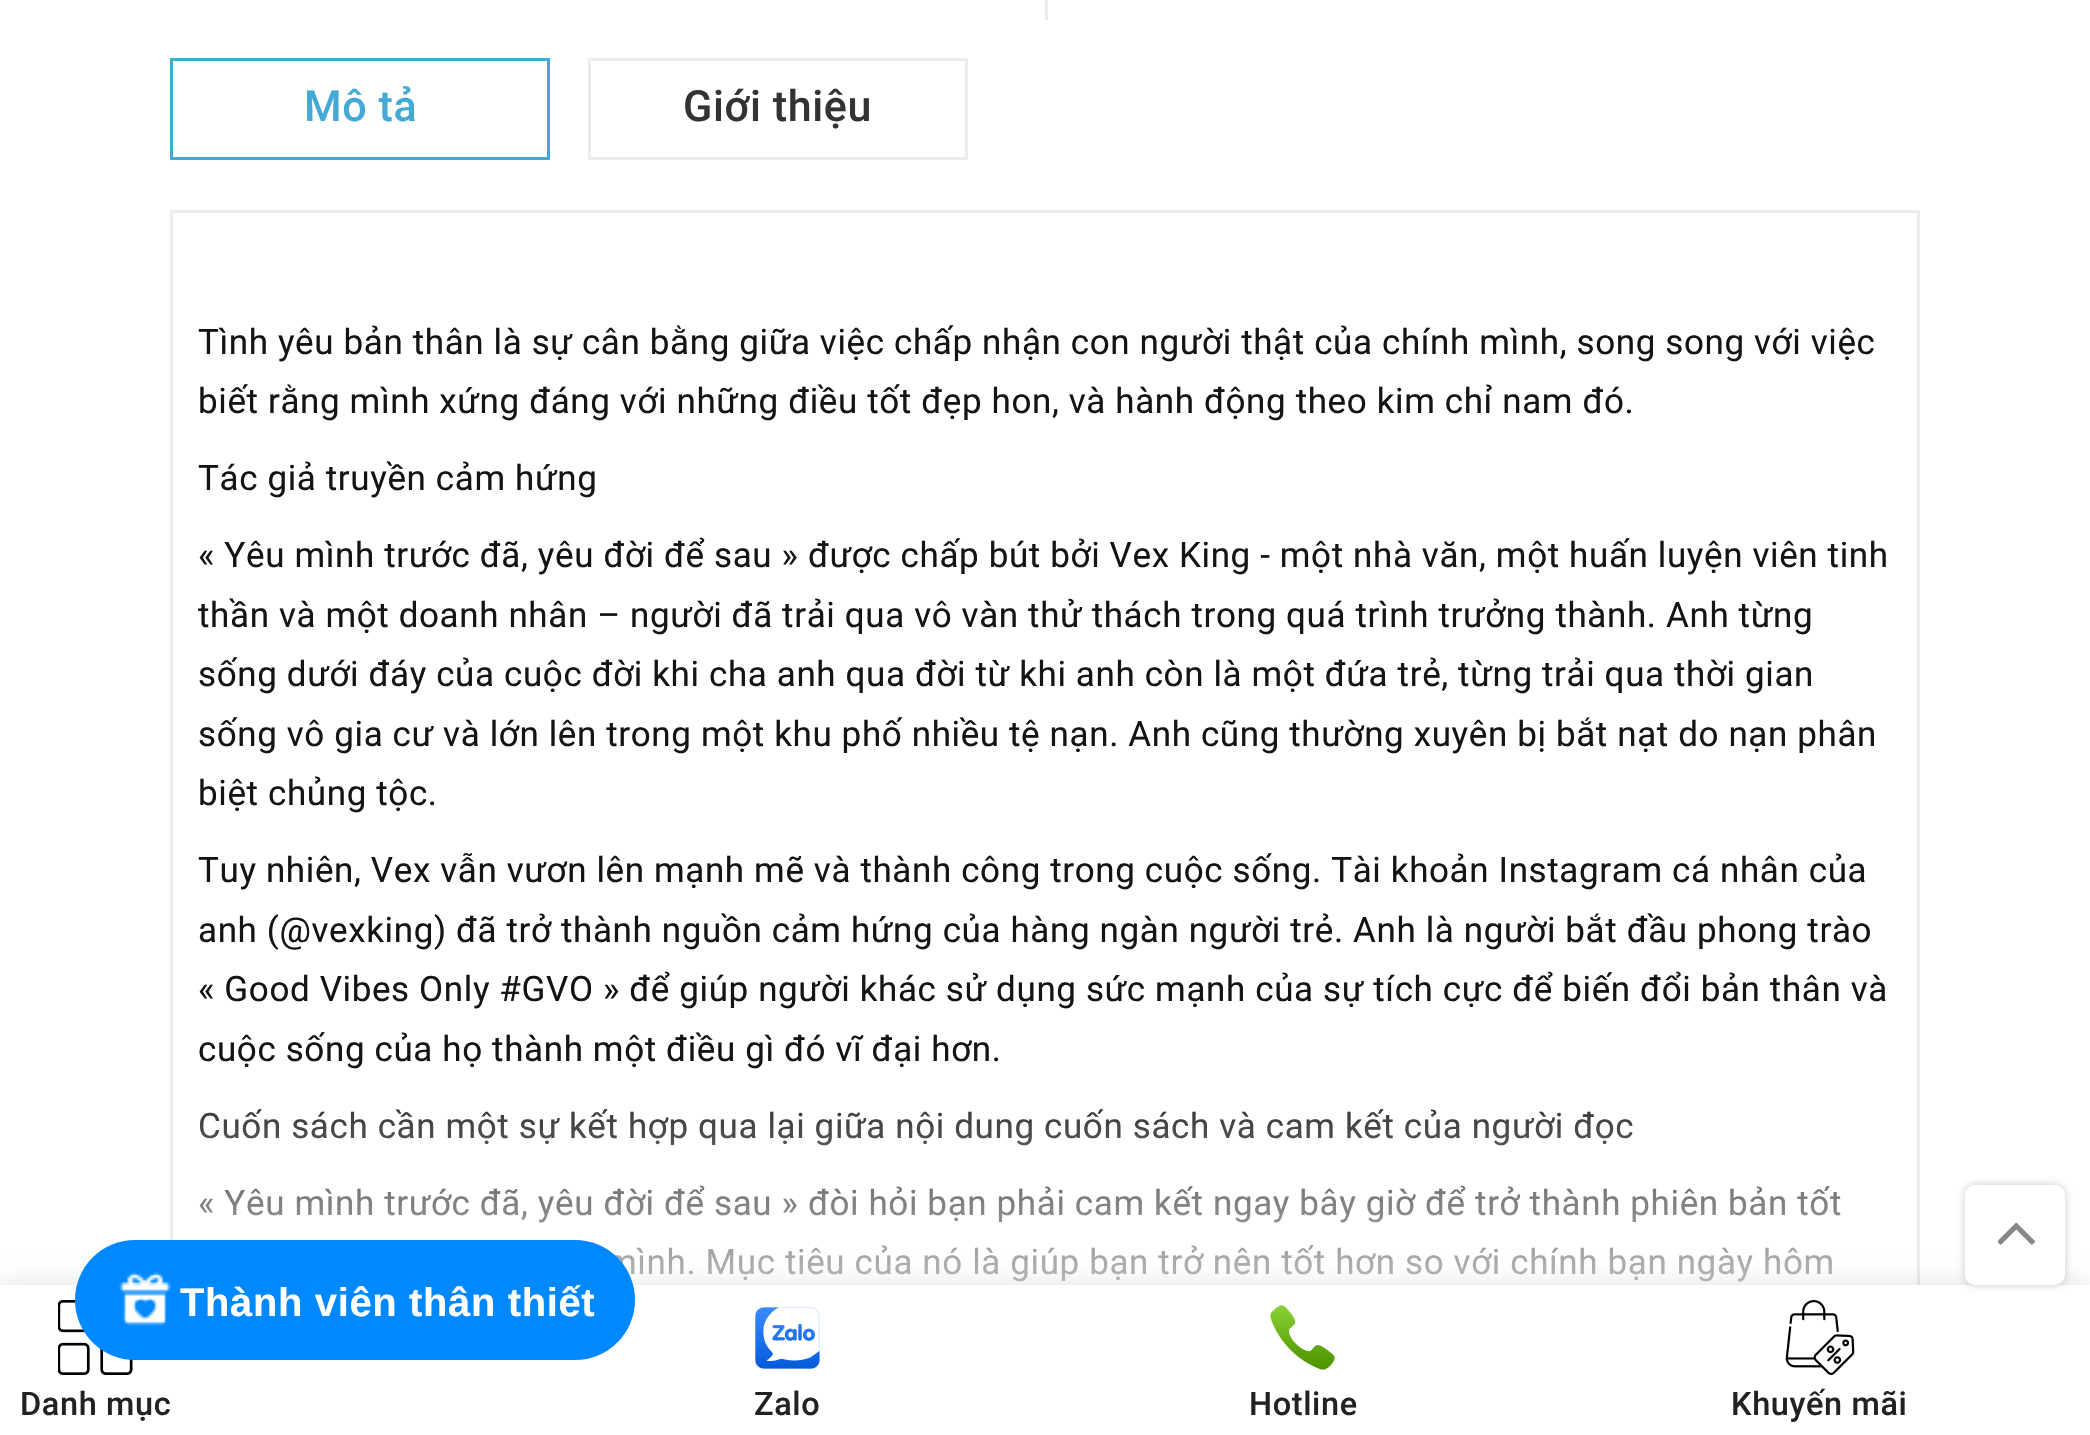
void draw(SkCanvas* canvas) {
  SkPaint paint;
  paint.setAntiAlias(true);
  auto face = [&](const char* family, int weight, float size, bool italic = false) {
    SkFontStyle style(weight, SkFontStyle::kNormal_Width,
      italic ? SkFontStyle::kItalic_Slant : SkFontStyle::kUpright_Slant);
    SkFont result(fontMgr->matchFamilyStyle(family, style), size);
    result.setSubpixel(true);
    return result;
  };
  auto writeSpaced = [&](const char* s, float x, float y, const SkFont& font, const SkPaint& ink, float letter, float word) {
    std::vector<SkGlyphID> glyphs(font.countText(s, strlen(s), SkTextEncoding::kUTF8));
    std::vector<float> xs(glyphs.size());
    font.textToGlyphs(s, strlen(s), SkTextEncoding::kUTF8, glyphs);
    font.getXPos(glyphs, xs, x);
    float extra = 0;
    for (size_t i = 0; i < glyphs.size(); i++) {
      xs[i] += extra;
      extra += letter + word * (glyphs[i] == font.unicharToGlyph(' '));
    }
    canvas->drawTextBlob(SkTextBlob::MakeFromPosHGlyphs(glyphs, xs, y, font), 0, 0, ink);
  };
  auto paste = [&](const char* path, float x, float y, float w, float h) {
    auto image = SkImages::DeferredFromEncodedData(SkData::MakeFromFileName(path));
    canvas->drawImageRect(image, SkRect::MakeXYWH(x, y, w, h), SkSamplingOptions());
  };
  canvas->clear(0xffffffff);
  paint.setColor(0xffececec);
  canvas->drawRect(SkRect::MakeXYWH(1045, 0, 3, 20), paint);
  paint.setStroke(true);
  paint.setStrokeWidth(3);
  paint.setColor(0xff44a9d5);
  canvas->drawRect(SkRect::MakeXYWH(171.5f, 59.5f, 377, 99), paint);
  paint.setColor(0xffececec);
  canvas->drawRect(SkRect::MakeXYWH(589.5f, 59.5f, 377, 99), paint);
  canvas->drawRect(SkRect::MakeXYWH(171.5f, 211.5f, 1747, 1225), paint);
  auto f0 = face("Roboto", 500, 43);
  paint.setStroke(false);
  paint.setColor(0xff44a9d5);
  writeSpaced("Mô tả", 304, 121, f0, paint, 0.62f, 0);
  paint.setColor(0xff333333);
  writeSpaced("Giới thiệu", 683, 121, f0, paint, 0.62f, 0);
  auto f1 = face("Roboto", 400, 35);
  paint.setColor(0xff141414);
  {
    const struct { const char* s; float x, y; } items[] = {
      {"Tình yêu bản thân là sự cân bằng giữa việc chấp nhận con người thật của chính mình, song song với việc", 198, 354},
      {"biết rằng mình xứng đáng với những điều tốt đẹp hon, và hành động theo kim chỉ nam đó.", 198, 413},
      {"Tác giả truyền cảm hứng", 198, 490},
      {"« Yêu mình trước đã, yêu đời để sau » được chấp bút bởi Vex King - một nhà văn, một huấn luyện viên tinh", 198, 567},
    };
    for (auto [s, x, y] : items) {
      writeSpaced(s, x, y, f1, paint, 0.62f, 0);
    }
  }
  canvas->save();
  canvas->clipRect(SkRect::MakeXYWH(198, 238, 1695, 1125));
  writeSpaced("thần và một doanh nhân – người đã trải qua vô vàn thử thách trong quá trình trưởng thành. Anh từng", 198, 627, f1, paint, 0.62f, 0);
  canvas->restore();
  {
    const struct { const char* s; float x, y; } items[] = {
      {"sống dưới đáy của cuộc đời khi cha anh qua đời từ khi anh còn là một đứa trẻ, từng trải qua thời gian", 198, 686},
      {"sống vô gia cư và lớn lên trong một khu phố nhiều tệ nạn. Anh cũng thường xuyên bị bắt nạt do nạn phân", 198, 746},
      {"biệt chủng tộc.", 198, 805},
      {"Tuy nhiên, Vex vẫn vươn lên mạnh mẽ và thành công trong cuộc sống. Tài khoản Instagram cá nhân của", 198, 882},
      {"anh (@vexking) đã trở thành nguồn cảm hứng của hàng ngàn người trẻ. Anh là người bắt đầu phong trào", 198, 942},
      {"« Good Vibes Only #GVO » để giúp người khác sử dụng sức mạnh của sự tích cực để biến đổi bản thân và", 198, 1001},
      {"cuộc sống của họ thành một điều gì đó vĩ đại hơn.", 198, 1061},
      {"Cuốn sách cần một sự kết hợp qua lại giữa nội dung cuốn sách và cam kết của người đọc", 198, 1138},
      {"« Yêu mình trước đã, yêu đời để sau » đòi hỏi bạn phải cam kết ngay bây giờ để trở thành phiên bản tốt", 198, 1215},
      {"mình. Mục tiêu của nó là giúp bạn trở nên tốt hơn so với chính bạn ngày hôm", 606, 1274},
    };
    for (auto [s, x, y] : items) {
      writeSpaced(s, x, y, f1, paint, 0.62f, 0);
    }
  }
  {
    const SkColor colors[] = {0x00ffffff, 0x54ffffff, 0xccffffff, 0xffffffff};
    const float stops[] = {0, 0.33f, 0.83f, 1};
    const SkPoint ends[] = {{1045, 1062}, {1045, 1363}};
    paint.setShader(SkGradientShader::MakeLinear(ends, colors, stops, 4, SkTileMode::kClamp));
    paint.setAlpha(255);
  }
  canvas->drawRect(SkRect::MakeXYWH(199, 1109, 1642, 173), paint);
  paint.setShader(nullptr);
  paint.setColor(0x1f000000);
  paint.setMaskFilter(SkMaskFilter::MakeBlur(kNormal_SkBlurStyle, 11));
  canvas->drawRect(SkRect::MakeXYWH(0, 1285, 2090, 150), paint);
  paint.setMaskFilter(nullptr);
  paint.setColor(0xffffffff);
  canvas->drawRect(SkRect::MakeXYWH(0, 1285, 2090, 150), paint);
  paint.setColor(0x33000000);
  paint.setMaskFilter(SkMaskFilter::MakeBlur(kNormal_SkBlurStyle, 4));
  canvas->drawRoundRect(SkRect::MakeXYWH(1965, 1185, 100, 100), 10, 10, paint);
  paint.setMaskFilter(nullptr);
  paint.setColor(0xffffffff);
  canvas->drawRoundRect(SkRect::MakeXYWH(1965, 1185, 100, 100), 10, 10, paint);
  paste("img/1.png", 1998, 1222, 37, 23);
  paste("img/3.png", 58, 1300, 75, 75);
  paint.setColor(0xff0088ff);
  canvas->drawRoundRect(SkRect::MakeXYWH(75, 1240, 560, 120), 60, 60, paint);
  auto f2 = face("Liberation Sans", 700, 40);
  paint.setColor(0xffffffff);
  writeSpaced("Thành viên thân thiết", 180, 1316, f2, paint, 0.62f, 0);
  paste("img/2.png", 119, 1272, 52, 54);
  auto f3 = face("Roboto", 500, 32.5f);
  paint.setColor(0xff222222);
  writeSpaced("Danh mục", 20, 1415, f3, paint, 0.62f, 0);
  paste("img/4.png", 755, 1307, 65, 62);
  writeSpaced("Zalo", 754, 1415, f3, paint, 0.62f, 0);
  paste("img/5.png", 1270, 1305, 65, 65);
  writeSpaced("Hotline", 1249, 1415, f3, paint, 0.62f, 0);
  paste("img/6.png", 1785, 1300, 70, 75);
  writeSpaced("Khuyến mãi", 1731, 1415, f3, paint, 0.62f, 0);
}
